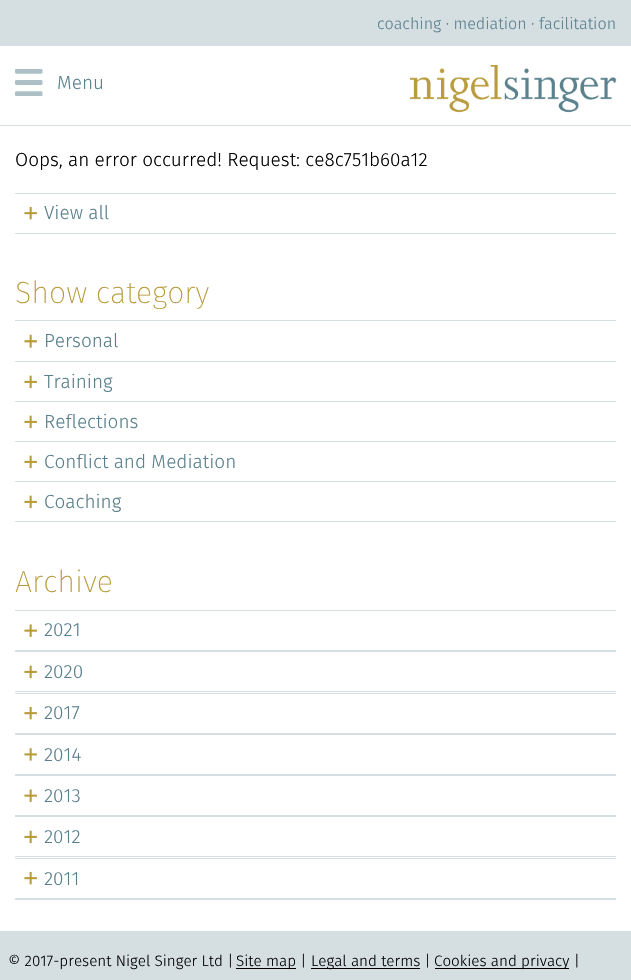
void draw(SkCanvas* canvas) {
  SkPaint paint;
  paint.setAntiAlias(true);
  auto face = [&](const char* family, int weight, float size, bool italic = false) {
    SkFontStyle style(weight, SkFontStyle::kNormal_Width,
      italic ? SkFontStyle::kItalic_Slant : SkFontStyle::kUpright_Slant);
    SkFont result(fontMgr->matchFamilyStyle(family, style), size);
    result.setSubpixel(true);
    return result;
  };
  auto paste = [&](const char* path, float x, float y, float w, float h) {
    auto image = SkImages::DeferredFromEncodedData(SkData::MakeFromFileName(path));
    canvas->drawImageRect(image, SkRect::MakeXYWH(x, y, w, h), SkSamplingOptions());
  };
  canvas->clear(0xffd5dfe2);
  paint.setColor(0xffffffff);
  canvas->drawRect(SkRect::MakeXYWH(0, 46, 631, 79), paint);
  paste("img/1.png", 15, 69, 28, 27);
  paste("img/2.png", 410, 65, 207, 48);
  canvas->drawRect(SkRect::MakeXYWH(0, 126, 631, 805), paint);
  paint.setColor(0xffd5dfe2);
  canvas->drawRect(SkRect::MakeXYWH(15, 193, 601, 1), paint);
  paste("img/3.png", 24, 206, 13, 14);
  canvas->drawRect(SkRect::MakeXYWH(15, 233, 601, 1), paint);
  canvas->drawRect(SkRect::MakeXYWH(15, 320, 601, 1), paint);
  paste("img/4.png", 24, 334, 13, 14);
  canvas->drawRect(SkRect::MakeXYWH(15, 361, 601, 1), paint);
  paste("img/5.png", 24, 375, 13, 14);
  canvas->drawRect(SkRect::MakeXYWH(15, 401, 601, 1), paint);
  paste("img/5.png", 24, 415, 13, 14);
  canvas->drawRect(SkRect::MakeXYWH(15, 441, 601, 1), paint);
  paste("img/5.png", 24, 455, 13, 14);
  canvas->drawRect(SkRect::MakeXYWH(15, 481, 601, 1), paint);
  paste("img/5.png", 24, 495, 13, 14);
  {
    const struct { float x, y, w, h; SkColor color; } items[] = {
      {15, 521, 601, 1, 0xffd5dfe2},
      {15, 610, 601, 1, 0xffd5dfe2},
      {15, 650, 601, 2, 0xffd5dfe2},
    };
    for (auto [x, y, w, h, color] : items) {
      paint.setColor(color);
      canvas->drawRect(SkRect::MakeXYWH(x, y, w, h), paint);
    }
  }
  paste("img/6.png", 24, 624, 13, 13);
  canvas->drawRect(SkRect::MakeXYWH(15, 693, 601, 1), paint);
  paste("img/5.png", 24, 665, 13, 14);
  canvas->drawRect(SkRect::MakeXYWH(15, 691, 601, 1), paint);
  canvas->drawRect(SkRect::MakeXYWH(15, 733, 601, 2), paint);
  paste("img/3.png", 24, 706, 13, 14);
  canvas->drawRect(SkRect::MakeXYWH(15, 774, 601, 2), paint);
  paste("img/7.png", 24, 748, 13, 13);
  canvas->drawRect(SkRect::MakeXYWH(15, 815, 601, 2), paint);
  paste("img/6.png", 24, 789, 13, 13);
  canvas->drawRect(SkRect::MakeXYWH(15, 858, 601, 1), paint);
  paste("img/5.png", 24, 830, 13, 14);
  canvas->drawRect(SkRect::MakeXYWH(15, 856, 601, 1), paint);
  canvas->drawRect(SkRect::MakeXYWH(15, 898, 601, 2), paint);
  paste("img/3.png", 24, 871, 13, 14);
  {
    const struct { float x, y, w, h; SkColor color; } items[] = {
      {236, 968, 60, 1, 0xff000000},
      {311, 968, 109, 1, 0xff000000},
      {435, 968, 134, 1, 0xff000000},
    };
    for (auto [x, y, w, h, color] : items) {
      paint.setColor(color);
      canvas->drawRect(SkRect::MakeXYWH(x, y, w, h), paint);
    }
  }
  auto f0 = face("Fira Sans", 300, 16.1f);
  paint.setColor(0xff597f8c);
  canvas->drawString("coaching · mediation · facilitation", 377, 29, f0, paint);
  auto f1 = face("Fira Sans", 300, 19);
  canvas->drawString("Menu", 57, 89, f1, paint);
  paint.setColor(0xff000000);
  canvas->drawString("Oops, an error occurred! Request: ce8c751b60a12", 15, 166, f1, paint);
  paint.setColor(0xff597f8c);
  canvas->drawString("View all", 44, 219, f1, paint);
  auto f2 = face("Fira Sans", 200, 30.5f);
  paint.setColor(0xffb89939);
  canvas->drawString("Show category", 15, 303, f2, paint);
  paint.setColor(0xff597f8c);
  {
    const struct { const char* s; float x, y; } items[] = {
      {"Personal", 44, 347},
      {"Training", 44, 388},
      {"Reflections", 44, 428},
      {"Conflict and Mediation", 44, 468},
      {"Coaching", 44, 508},
    };
    for (auto [s, x, y] : items) {
      canvas->drawString(s, x, y, f1, paint);
    }
  }
  paint.setColor(0xffb89939);
  canvas->drawString("Archive", 15, 592, f2, paint);
  paint.setColor(0xff597f8c);
  {
    const struct { const char* s; float x, y; } items[] = {
      {"2021", 44, 636},
      {"2020", 44, 678},
      {"2017", 44, 719},
      {"2014", 44, 761},
      {"2013", 44, 802},
      {"2012", 44, 843},
      {"2011", 44, 885},
    };
    for (auto [s, x, y] : items) {
      canvas->drawString(s, x, y, f1, paint);
    }
  }
  auto f3 = face("Fira Sans", 300, 15.25f);
  paint.setColor(0xff000000);
  {
    const struct { const char* s; float x, y; } items[] = {
      {"© 2017-present Nigel Singer Ltd |", 8, 966},
      {"Site map |", 236, 966},
      {"Legal and terms |", 311, 966},
      {"Cookies and privacy |", 434, 966},
    };
    for (auto [s, x, y] : items) {
      canvas->drawString(s, x, y, f3, paint);
    }
  }
}
